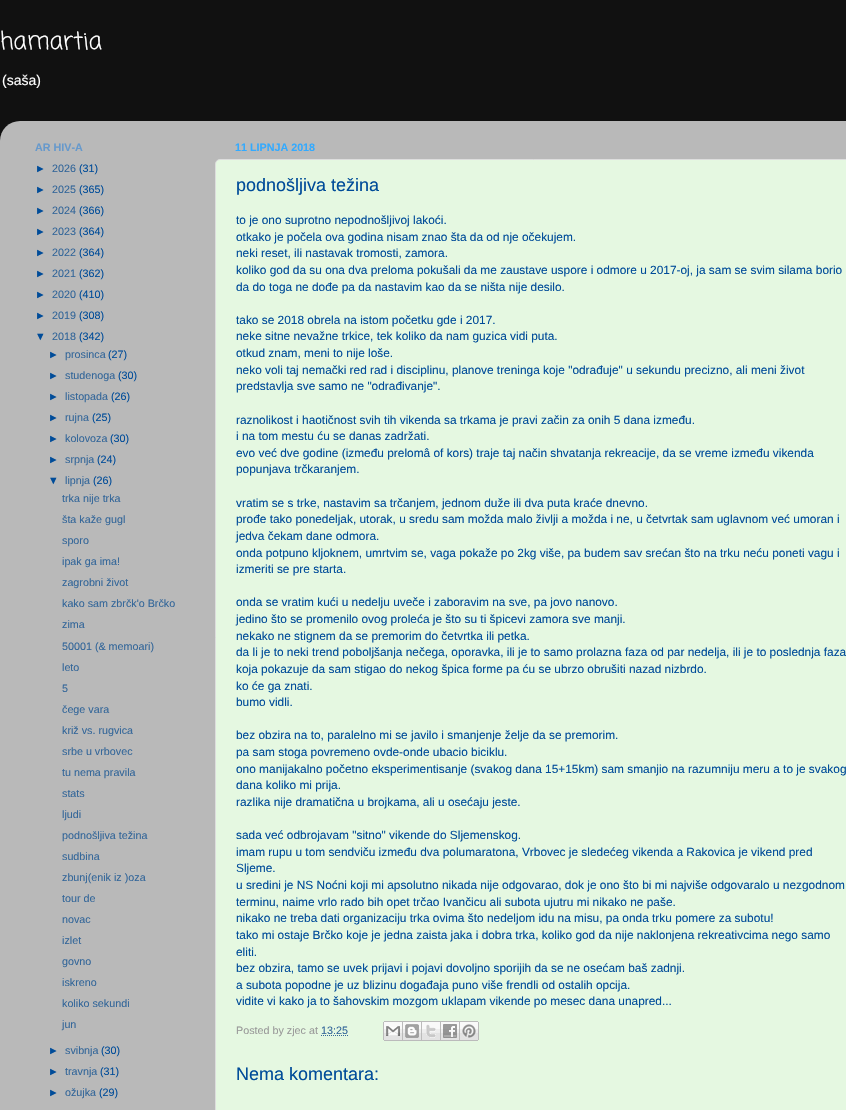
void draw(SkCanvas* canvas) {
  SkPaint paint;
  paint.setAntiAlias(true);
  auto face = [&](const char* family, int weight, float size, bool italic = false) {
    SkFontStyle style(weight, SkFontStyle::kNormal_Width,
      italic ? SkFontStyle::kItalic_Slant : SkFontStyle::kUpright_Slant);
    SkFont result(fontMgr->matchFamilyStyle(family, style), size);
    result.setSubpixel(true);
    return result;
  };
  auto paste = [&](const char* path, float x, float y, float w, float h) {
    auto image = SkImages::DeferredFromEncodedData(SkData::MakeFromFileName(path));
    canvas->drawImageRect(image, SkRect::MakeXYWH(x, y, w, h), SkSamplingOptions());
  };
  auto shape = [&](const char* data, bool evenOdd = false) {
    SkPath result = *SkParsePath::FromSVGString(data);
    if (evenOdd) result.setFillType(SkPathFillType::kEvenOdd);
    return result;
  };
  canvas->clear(0xff111111);
  paste("img/1.png", 0, 121, 846, 989);
  paint.setColor(0xffe5f8e1);
  canvas->drawRoundRect(SkRect::MakeXYWH(215.5f, 159.5f, 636, 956), 4.5f, 4.5f, paint);
  paint.setStroke(true);
  paint.setStrokeWidth(1);
  paint.setColor(0xffdddddd);
  canvas->drawRoundRect(SkRect::MakeXYWH(215.5f, 159.5f, 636, 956), 4.5f, 4.5f, paint);
  paint.setColor(0xff336699);
  paint.setPathEffect(SkDashPathEffect::Make({{1, 1}}, 0));
  canvas->drawPath(shape("M321 1035.5H348.5"), paint);
  paint.setPathEffect(nullptr);
  paste("img/2.png", 383, 1021, 20, 20);
  paste("img/3.png", 403, 1021, 19, 20);
  paste("img/4.png", 422, 1021, 19, 20);
  paste("img/5.png", 441, 1021, 19, 20);
  paste("img/6.png", 460, 1021, 19, 20);
  auto f0 = face("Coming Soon", 400, 24);
  paint.setStroke(false);
  paint.setColor(0xffffffff);
  canvas->drawString("hamartia", 0, 49, f0, paint);
  auto f1 = face("Liberation Sans", 400, 14);
  canvas->drawString("(saša)", 2, 85, f1, paint);
  auto f2 = face("Liberation Sans", 700, 10.75f);
  paint.setColor(0xff6699cc);
  canvas->drawString("AR HIV-A", 35, 151, f2, paint);
  auto f3 = face("Liberation Sans", 400, 10.75f);
  paint.setColor(0xff004c99);
  canvas->drawString("►", 35, 172, f3, paint);
  paint.setColor(0xff336699);
  canvas->drawString("2026", 52, 172, f3, paint);
  paint.setColor(0xff004c99);
  canvas->drawString("(31)", 79, 172, f3, paint);
  canvas->drawString("►", 35, 193, f3, paint);
  paint.setColor(0xff336699);
  canvas->drawString("2025", 52, 193, f3, paint);
  paint.setColor(0xff004c99);
  canvas->drawString("(365)", 79, 193, f3, paint);
  canvas->drawString("►", 35, 214, f3, paint);
  paint.setColor(0xff336699);
  canvas->drawString("2024", 52, 214, f3, paint);
  paint.setColor(0xff004c99);
  canvas->drawString("(366)", 79, 214, f3, paint);
  canvas->drawString("►", 35, 235, f3, paint);
  paint.setColor(0xff336699);
  canvas->drawString("2023", 52, 235, f3, paint);
  paint.setColor(0xff004c99);
  canvas->drawString("(364)", 79, 235, f3, paint);
  canvas->drawString("►", 35, 256, f3, paint);
  paint.setColor(0xff336699);
  canvas->drawString("2022", 52, 256, f3, paint);
  paint.setColor(0xff004c99);
  canvas->drawString("(364)", 79, 256, f3, paint);
  canvas->drawString("►", 35, 277, f3, paint);
  paint.setColor(0xff336699);
  canvas->drawString("2021", 52, 277, f3, paint);
  paint.setColor(0xff004c99);
  canvas->drawString("(362)", 79, 277, f3, paint);
  canvas->drawString("►", 35, 298, f3, paint);
  paint.setColor(0xff336699);
  canvas->drawString("2020", 52, 298, f3, paint);
  paint.setColor(0xff004c99);
  canvas->drawString("(410)", 79, 298, f3, paint);
  canvas->drawString("►", 35, 319, f3, paint);
  paint.setColor(0xff336699);
  canvas->drawString("2019", 52, 319, f3, paint);
  paint.setColor(0xff004c99);
  canvas->drawString("(308)", 79, 319, f3, paint);
  canvas->drawString("▼", 35, 340, f3, paint);
  paint.setColor(0xff336699);
  canvas->drawString("2018", 52, 340, f3, paint);
  paint.setColor(0xff004c99);
  canvas->drawString("(342)", 79, 340, f3, paint);
  canvas->drawString("►", 48, 358, f3, paint);
  paint.setColor(0xff336699);
  canvas->drawString("prosinca", 65, 358, f3, paint);
  paint.setColor(0xff004c99);
  canvas->drawString("(27)", 108, 358, f3, paint);
  canvas->drawString("►", 48, 379, f3, paint);
  paint.setColor(0xff336699);
  canvas->drawString("studenoga", 65, 379, f3, paint);
  paint.setColor(0xff004c99);
  canvas->drawString("(30)", 118, 379, f3, paint);
  canvas->drawString("►", 48, 400, f3, paint);
  paint.setColor(0xff336699);
  canvas->drawString("listopada", 65, 400, f3, paint);
  paint.setColor(0xff004c99);
  canvas->drawString("(26)", 111, 400, f3, paint);
  canvas->drawString("►", 48, 421, f3, paint);
  paint.setColor(0xff336699);
  canvas->drawString("rujna", 65, 421, f3, paint);
  paint.setColor(0xff004c99);
  canvas->drawString("(25)", 92, 421, f3, paint);
  canvas->drawString("►", 48, 442, f3, paint);
  paint.setColor(0xff336699);
  canvas->drawString("kolovoza", 65, 442, f3, paint);
  paint.setColor(0xff004c99);
  canvas->drawString("(30)", 110, 442, f3, paint);
  canvas->drawString("►", 48, 463, f3, paint);
  paint.setColor(0xff336699);
  canvas->drawString("srpnja", 65, 463, f3, paint);
  paint.setColor(0xff004c99);
  canvas->drawString("(24)", 97, 463, f3, paint);
  canvas->drawString("▼", 48, 484, f3, paint);
  paint.setColor(0xff336699);
  canvas->drawString("lipnja", 65, 484, f3, paint);
  paint.setColor(0xff004c99);
  canvas->drawString("(26)", 93, 484, f3, paint);
  paint.setColor(0xff336699);
  {
    const struct { const char* s; float x, y; } items[] = {
      {"trka nije trka", 62, 502},
      {"šta kaže gugl", 62, 523},
      {"sporo", 62, 544},
      {"ipak ga ima!", 62, 565},
      {"zagrobni život", 62, 586},
      {"kako sam zbrčk'o Brčko", 62, 607},
      {"zima", 62, 628},
      {"50001 (& memoari)", 62, 650},
      {"leto", 62, 671},
      {"5", 62, 692},
      {"čege vara", 62, 713},
      {"križ vs. rugvica", 62, 734},
      {"srbe u vrbovec", 62, 755},
      {"tu nema pravila", 62, 776},
      {"stats", 62, 797},
      {"ljudi", 62, 818},
      {"podnošljiva težina", 62, 839},
      {"sudbina", 62, 860},
      {"zbunj(enik iz )oza", 62, 881},
      {"tour de", 62, 902},
      {"novac", 62, 923},
      {"izlet", 62, 944},
      {"govno", 62, 965},
      {"iskreno", 62, 986},
      {"koliko sekundi", 62, 1007},
      {"jun", 62, 1028},
    };
    for (auto [s, x, y] : items) {
      canvas->drawString(s, x, y, f3, paint);
    }
  }
  paint.setColor(0xff004c99);
  canvas->drawString("►", 48, 1054, f3, paint);
  paint.setColor(0xff336699);
  canvas->drawString("svibnja", 65, 1054, f3, paint);
  paint.setColor(0xff004c99);
  canvas->drawString("(30)", 101, 1054, f3, paint);
  canvas->drawString("►", 48, 1075, f3, paint);
  paint.setColor(0xff336699);
  canvas->drawString("travnja", 65, 1075, f3, paint);
  paint.setColor(0xff004c99);
  canvas->drawString("(31)", 100, 1075, f3, paint);
  canvas->drawString("►", 48, 1096, f3, paint);
  paint.setColor(0xff336699);
  canvas->drawString("ožujka", 65, 1096, f3, paint);
  paint.setColor(0xff004c99);
  canvas->drawString("(29)", 99, 1096, f3, paint);
  paint.setColor(0xff33aaff);
  canvas->drawString("11 LIPNJA 2018", 235, 151, f2, paint);
  auto f4 = face("Liberation Sans", 400, 18);
  paint.setColor(0xff004c99);
  canvas->drawString("podnošljiva težina", 236, 191, f4, paint);
  auto f5 = face("Liberation Sans", 400, 11.88f);
  {
    const struct { const char* s; float x, y; } items[] = {
      {"to je ono suprotno nepodnošljivoj lakoći.", 236, 224},
      {"otkako je počela ova godina nisam znao šta da od nje očekujem.", 236, 241},
      {"neki reset, ili nastavak tromosti, zamora.", 236, 257},
      {"koliko god da su ona dva preloma pokušali da me zaustave uspore i odmore u 2017-oj, ja sam se svim silama borio", 236, 274},
      {"da do toga ne dođe pa da nastavim kao da se ništa nije desilo.", 236, 291},
      {"tako se 2018 obrela na istom početku gde i 2017.", 236, 324},
      {"neke sitne nevažne trkice, tek koliko da nam guzica vidi puta.", 236, 340},
      {"otkud znam, meni to nije loše.", 236, 357},
      {"neko voli taj nemački red rad i disciplinu, planove treninga koje \"odrađuje\" u sekundu precizno, ali meni život", 236, 374},
      {"predstavlja sve samo ne \"odrađivanje\".", 236, 390},
      {"raznolikost i haotičnost svih tih vikenda sa trkama je pravi začin za onih 5 dana između.", 236, 424},
      {"i na tom mestu ću se danas zadržati.", 236, 440},
      {"evo već dve godine (između prelomâ of kors) traje taj način shvatanja rekreacije, da se vreme između vikenda", 236, 457},
      {"popunjava trčkaranjem.", 236, 473},
      {"vratim se s trke, nastavim sa trčanjem, jednom duže ili dva puta kraće dnevno.", 236, 507},
      {"prođe tako ponedeljak, utorak, u sredu sam možda malo življi a možda i ne, u četvrtak sam uglavnom već umoran i", 236, 523},
      {"jedva čekam dane odmora.", 236, 540},
      {"onda potpuno kljoknem, umrtvim se, vaga pokaže po 2kg više, pa budem sav srećan što na trku neću poneti vagu i", 236, 557},
      {"izmeriti se pre starta.", 236, 573},
      {"onda se vratim kući u nedelju uveče i zaboravim na sve, pa jovo nanovo.", 236, 606},
      {"jedino što se promenilo ovog proleća je što su ti špicevi zamora sve manji.", 236, 623},
      {"nekako ne stignem da se premorim do četvrtka ili petka.", 236, 640},
      {"da li je to neki trend poboljšanja nečega, oporavka, ili je to samo prolazna faza od par nedelja, ili je to poslednja faza", 236, 656},
      {"koja pokazuje da sam stigao do nekog špica forme pa ću se ubrzo obrušiti nazad nizbrdo.", 236, 673},
      {"ko će ga znati.", 236, 690},
      {"bumo vidli.", 236, 706},
      {"bez obzira na to, paralelno mi se javilo i smanjenje želje da se premorim.", 236, 739},
      {"pa sam stoga povremeno ovde-onde ubacio biciklu.", 236, 756},
      {"ono manijakalno početno eksperimentisanje (svakog dana 15+15km) sam smanjio na razumniju meru a to je svakog", 236, 773},
      {"dana koliko mi prija.", 236, 789},
      {"razlika nije dramatična u brojkama, ali u osećaju jeste.", 236, 806},
      {"sada već odbrojavam \"sitno\" vikende do Sljemenskog.", 236, 839},
      {"imam rupu u tom sendviču između dva polumaratona, Vrbovec je sledećeg vikenda a Rakovica je vikend pred", 236, 856},
      {"Sljeme.", 236, 872},
      {"u sredini je NS Noćni koji mi apsolutno nikada nije odgovarao, dok je ono što bi mi najviše odgovaralo u nezgodnom", 236, 889},
      {"terminu, naime vrlo rado bih opet trčao Ivančicu ali subota ujutru mi nikako ne paše.", 236, 906},
      {"nikako ne treba dati organizaciju trka ovima što nedeljom idu na misu, pa onda trku pomere za subotu!", 236, 922},
      {"tako mi ostaje Brčko koje je jedna zaista jaka i dobra trka, koliko god da nije naklonjena rekreativcima nego samo", 236, 939},
      {"eliti.", 236, 956},
      {"bez obzira, tamo se uvek prijavi i pojavi dovoljno sporijih da se ne osećam baš zadnji.", 236, 972},
      {"a subota popodne je uz blizinu događaja puno više frendli od ostalih opcija.", 236, 989},
      {"vidite vi kako ja to šahovskim mozgom uklapam vikende po mesec dana unapred...", 236, 1005},
    };
    for (auto [s, x, y] : items) {
      canvas->drawString(s, x, y, f5, paint);
    }
  }
  paint.setColor(0xff999999);
  canvas->drawString("Posted by zjec at", 236, 1034, f3, paint);
  paint.setColor(0xff336699);
  canvas->drawString("13:25", 321, 1034, f3, paint);
  paint.setColor(0xff004c99);
  canvas->drawString("Nema komentara:", 236, 1080, f4, paint);
}
